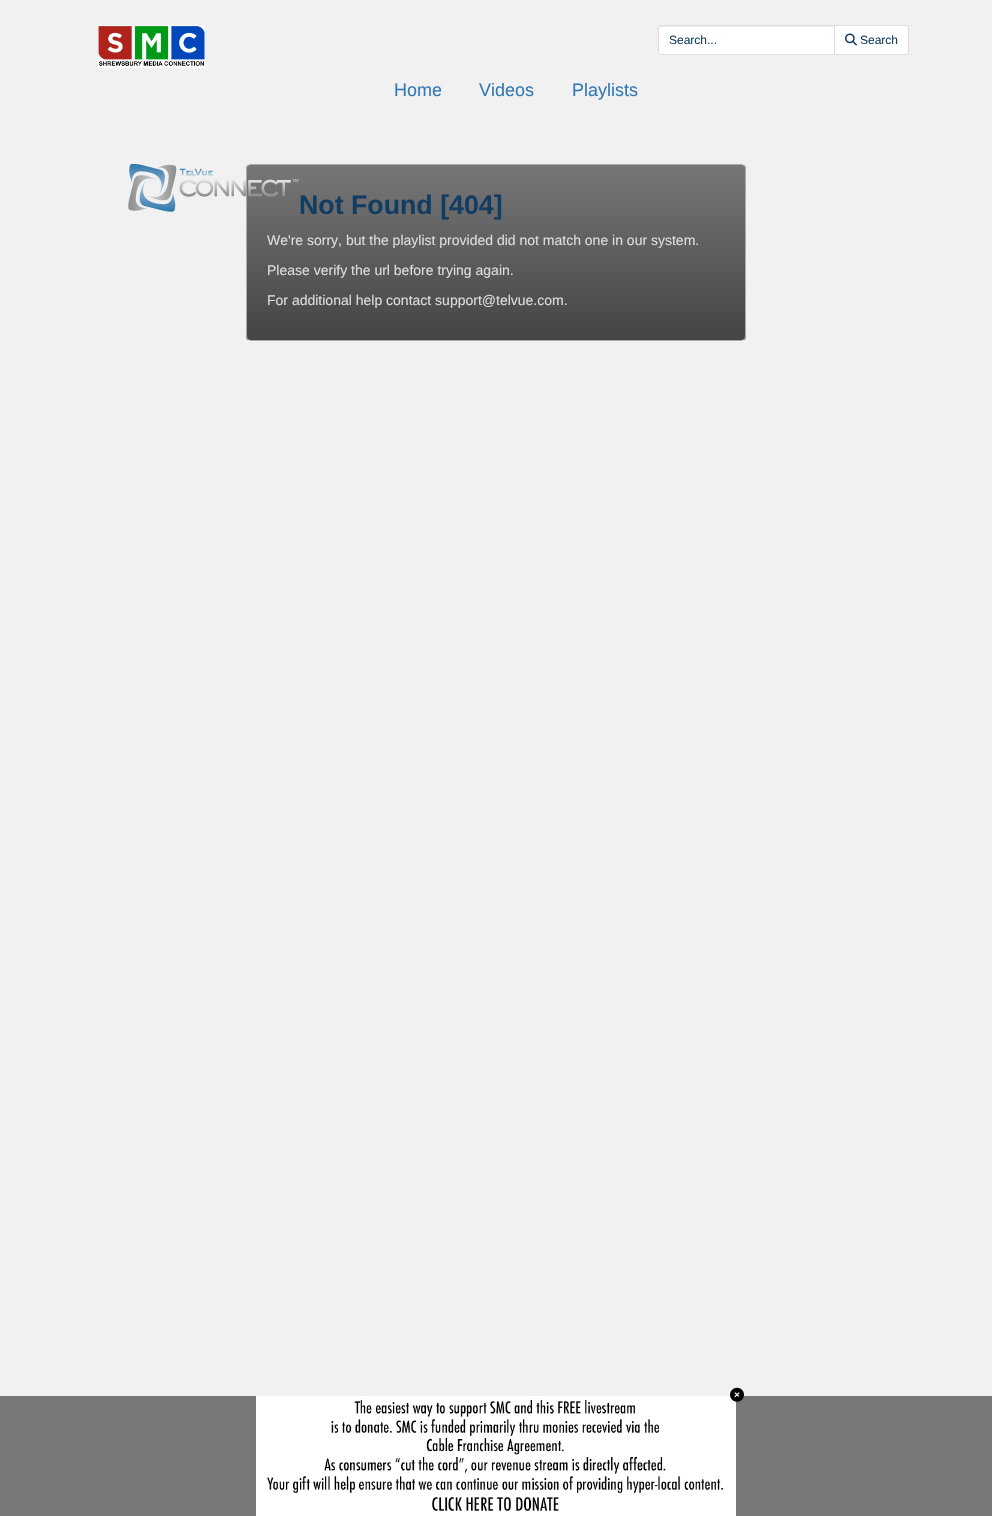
void draw(SkCanvas* canvas) {
  SkPaint paint;
  paint.setAntiAlias(true);
  auto face = [&](const char* family, int weight, float size, bool italic = false) {
    SkFontStyle style(weight, SkFontStyle::kNormal_Width,
      italic ? SkFontStyle::kItalic_Slant : SkFontStyle::kUpright_Slant);
    SkFont result(fontMgr->matchFamilyStyle(family, style), size);
    result.setSubpixel(true);
    return result;
  };
  auto paste = [&](const char* path, float x, float y, float w, float h) {
    auto image = SkImages::DeferredFromEncodedData(SkData::MakeFromFileName(path));
    canvas->drawImageRect(image, SkRect::MakeXYWH(x, y, w, h), SkSamplingOptions());
  };
  auto shape = [&](const char* data, bool evenOdd = false) {
    SkPath result = *SkParsePath::FromSVGString(data);
    if (evenOdd) result.setFillType(SkPathFillType::kEvenOdd);
    return result;
  };
  canvas->clear(0xfff1f1f1);
  paste("img/1.png", 98, 25, 107, 43);
  paint.setColor(0xffffffff);
  canvas->drawPath(shape("M661 25H835V55H661C659.5 55 658 53.5 658 52V28C658 26.5 659.5 25 661 25Z"), paint);
  paint.setColor(0xffececec);
  canvas->drawPath(shape("M661 27H834V26H660C659 27 659 28 659 29C659 28 660 27 661 27Z"), paint);
  paint.setStroke(true);
  paint.setStrokeWidth(1);
  paint.setColor(0xffdddddd);
  canvas->drawPath(shape("M661 25.5H834.5V54.5H661C659.5 54.5 658.5 53.5 658.5 52V28C658.5 26.5 659.5 25.5 661 25.5Z"), paint);
  paint.setStroke(false);
  paint.setColor(0xffffffff);
  canvas->drawPath(shape("M834.5 25.5H906C907.5 25.5 908.5 26.5 908.5 28V52C908.5 53.5 907.5 54.5 906 54.5H834.5Z"), paint);
  paint.setStroke(true);
  paint.setColor(0xffdddddd);
  canvas->drawPath(shape("M834.5 25.5H906C907.5 25.5 908.5 26.5 908.5 28V52C908.5 53.5 907.5 54.5 906 54.5H834.5Z"), paint);
  paste("img/2.png", 845, 33, 12, 13);
  canvas->save();
  canvas->clipPath(shape("M251 164H741C744 164 746 166 746 169V336C746 339 744 341 741 341H251C248 341 246 339 246 336V169C246 166 248 164 251 164Z"), true);
  paint.setStroke(false);
  {
    const SkColor colors[] = {0xff777777, 0xff444444};
    const float stops[] = {0, 1};
    const SkPoint ends[] = {{496, 165}, {496, 340}};
    paint.setShader(SkGradientShader::MakeLinear(ends, colors, stops, 2, SkTileMode::kClamp));
    paint.setAlpha(255);
  }
  canvas->drawRect(SkRect::MakeXYWH(246, 165, 500, 175), paint);
  canvas->restore();
  paint.setStroke(true);
  paint.setShader(nullptr);
  paint.setColor(0xffaaaaaa);
  canvas->drawRoundRect(SkRect::MakeXYWH(246.5f, 164.5f, 499, 176), 4.5f, 4.5f, paint);
  paste("img/3.png", 128, 164, 171, 48);
  paint.setStroke(false);
  paint.setColor(0xff787878);
  canvas->drawRect(SkRect::MakeXYWH(0, 1396, 992, 120), paint);
  paste("img/5.png", 256, 1396, 480, 120);
  paste("img/4.png", 730, 1387, 14, 15);
  auto f0 = face("Liberation Sans", 400, 12);
  paint.setColor(0xff123d62);
  canvas->drawString("Search...", 669, 44, f0, paint);
  canvas->drawString("Search", 860, 44, f0, paint);
  auto f1 = face("Liberation Sans", 400, 18);
  paint.setColor(0xff337ab7);
  {
    const struct { const char* s; float x, y; } items[] = {
      {"Home", 394, 96},
      {"Videos", 479, 96},
      {"Playlists", 572, 96},
    };
    for (auto [s, x, y] : items) {
      canvas->drawString(s, x, y, f1, paint);
    }
  }
  auto f2 = face("Liberation Sans", 700, 26.75f);
  paint.setColor(0xff123d62);
  canvas->drawString("Not Found [404]", 299, 214, f2, paint);
  auto f3 = face("Liberation Sans", 400, 14);
  paint.setColor(0xffdddddd);
  {
    const struct { const char* s; float x, y; } items[] = {
      {"We're sorry, but the playlist provided did not match one in our system.", 267, 245},
      {"Please verify the url before trying again.", 267, 275},
      {"For additional help contact support@telvue.com.", 267, 305},
    };
    for (auto [s, x, y] : items) {
      canvas->drawString(s, x, y, f3, paint);
    }
  }
}
